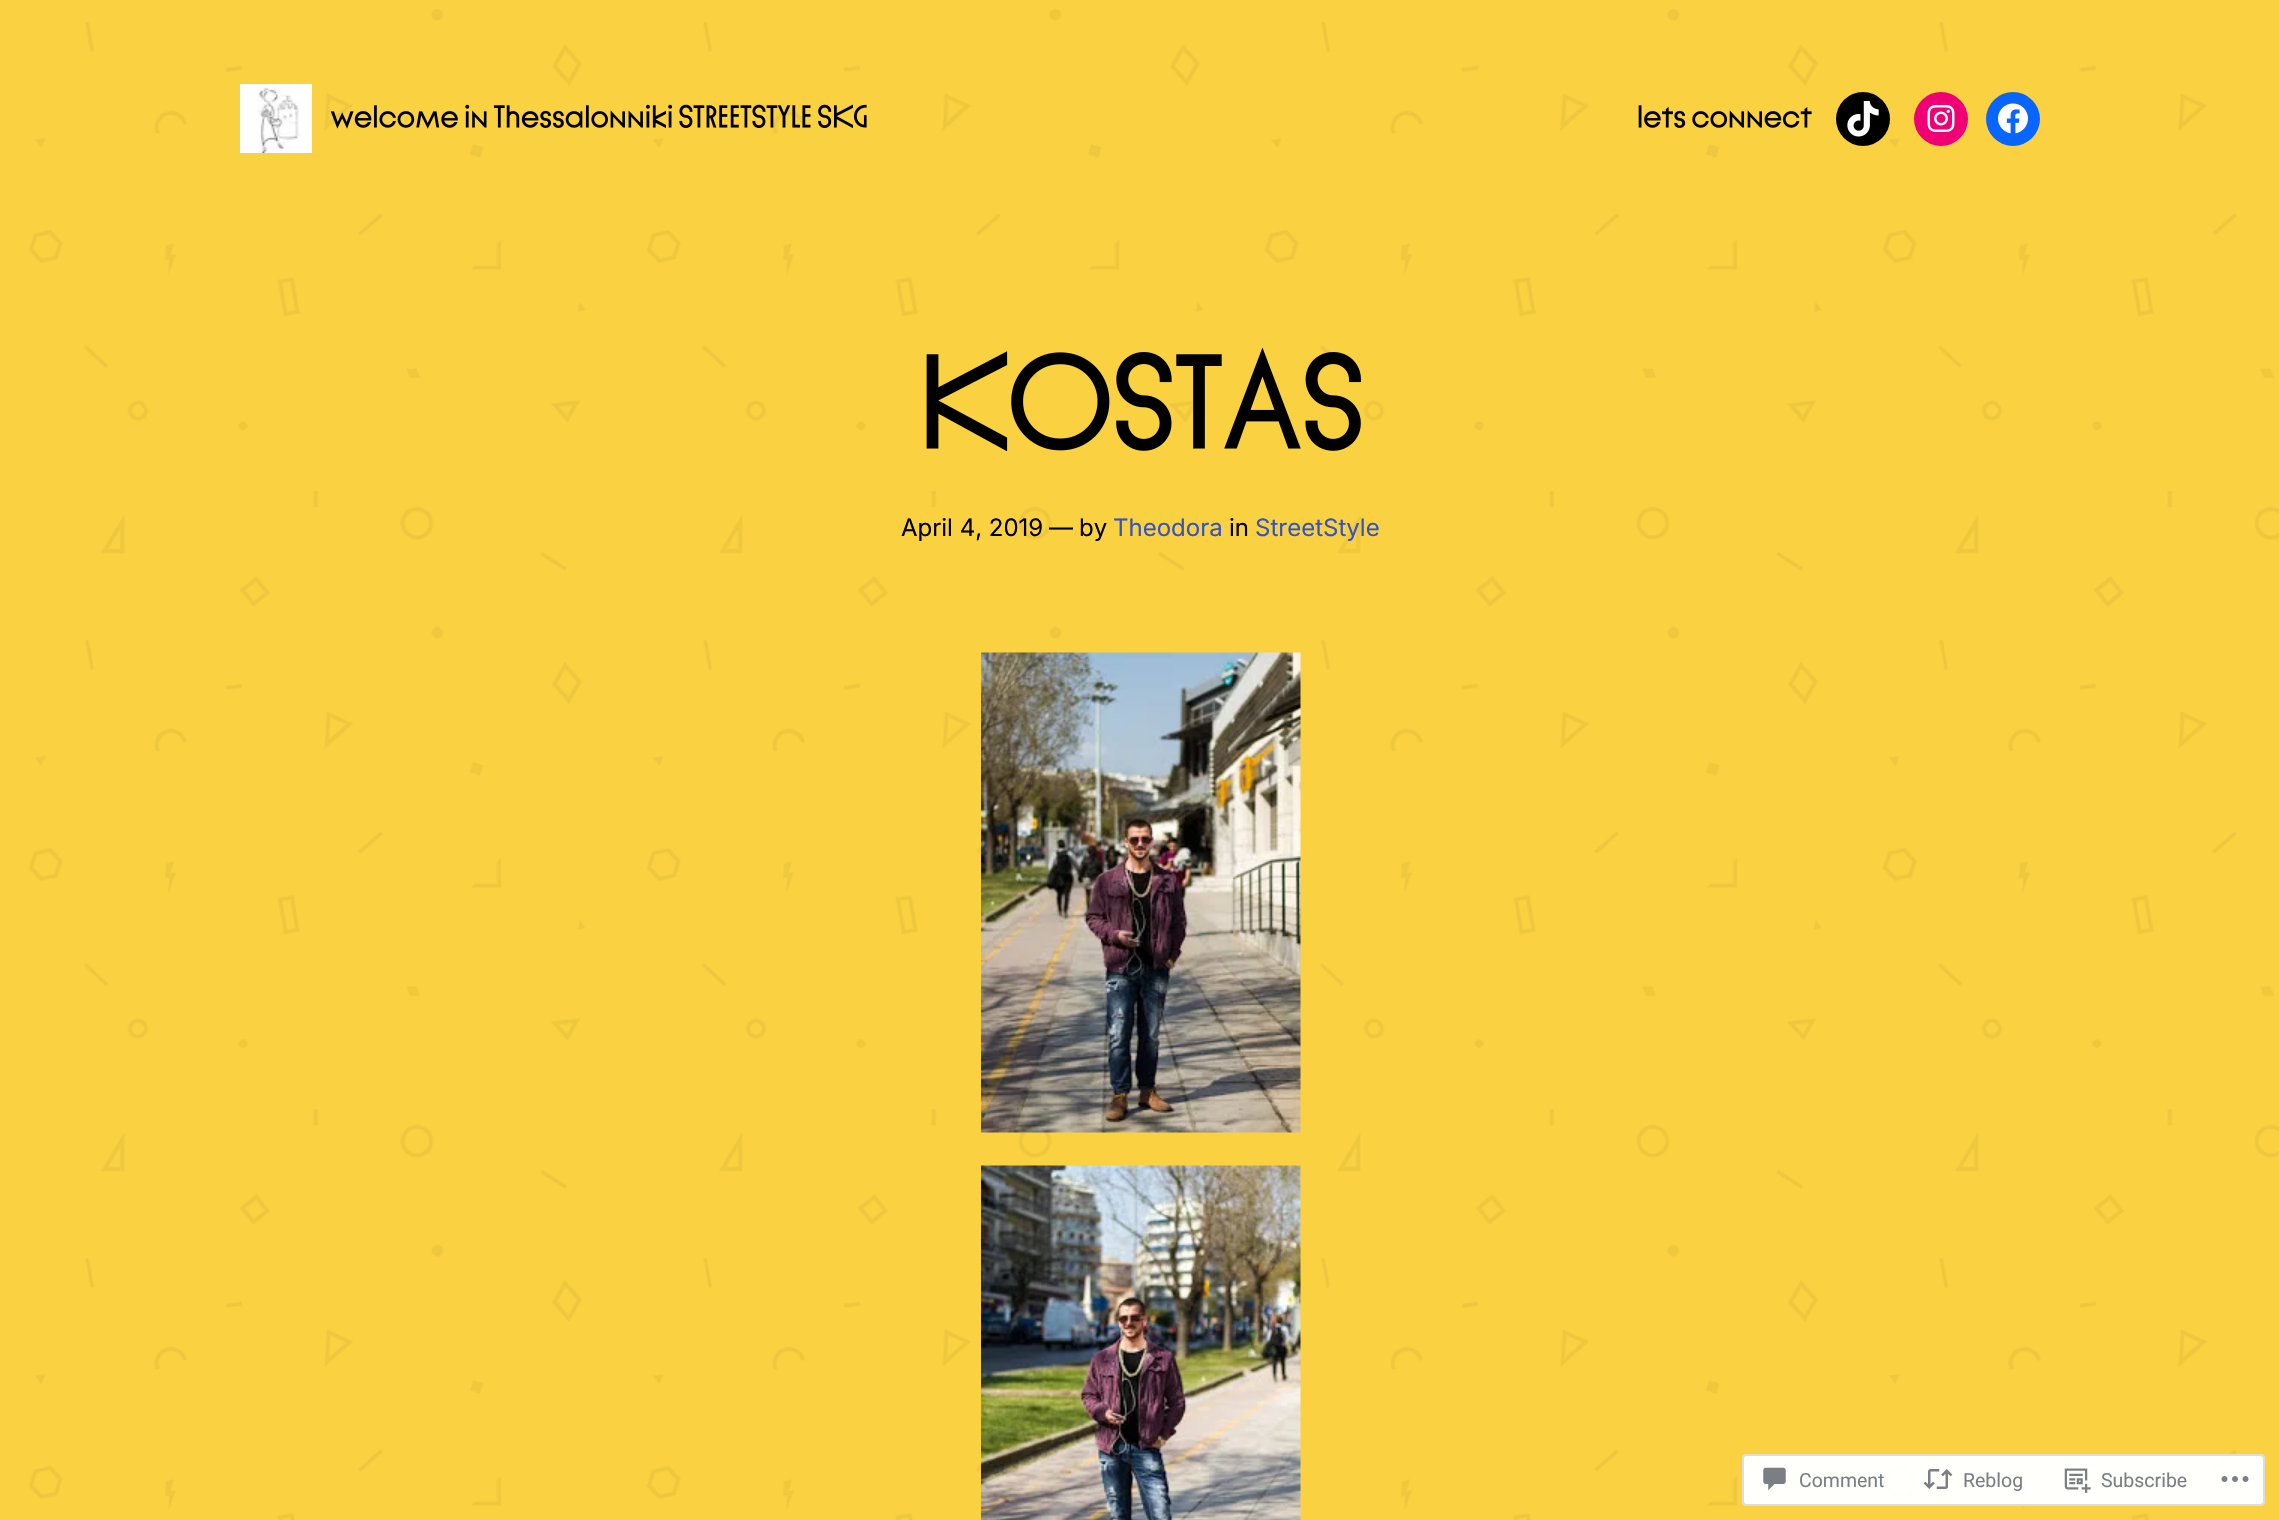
void draw(SkCanvas* canvas) {
  SkPaint paint;
  paint.setAntiAlias(true);
  auto face = [&](const char* family, int weight, float size, bool italic = false) {
    SkFontStyle style(weight, SkFontStyle::kNormal_Width,
      italic ? SkFontStyle::kItalic_Slant : SkFontStyle::kUpright_Slant);
    SkFont result(fontMgr->matchFamilyStyle(family, style), size);
    result.setSubpixel(true);
    return result;
  };
  auto paste = [&](const char* path, float x, float y, float w, float h) {
    auto image = SkImages::DeferredFromEncodedData(SkData::MakeFromFileName(path));
    canvas->drawImageRect(image, SkRect::MakeXYWH(x, y, w, h), SkSamplingOptions());
  };
  canvas->clear(0xfffad141);
  paste("img/1.png", 29, 9, 2250, 1511);
  paste("img/2.png", 240, 84, 72, 69);
  paste("img/3.png", 330, 104, 537, 25);
  paste("img/4.png", 1638, 105, 174, 23);
  paint.setColor(0xff000000);
  canvas->drawCircle(1863, 119, 27, paint);
  paste("img/5.png", 1847, 101, 32, 36);
  paint.setColor(0xfff00075);
  canvas->drawCircle(1941, 119, 27, paint);
  paste("img/6.png", 1927, 105, 28, 27);
  paint.setColor(0xff0866ff);
  canvas->drawCircle(2013, 119, 27, paint);
  paste("img/7.png", 1998, 103, 30, 31);
  paste("img/8.png", 926, 347, 435, 105);
  paste("img/9.png", 981, 652, 320, 481);
  paste("img/10.png", 981, 1165, 320, 355);
  paint.setColor(0xfaffffff);
  canvas->drawRoundRect(SkRect::MakeXYWH(1742, 1454, 523, 52), 5, 5, paint);
  paint.setStroke(true);
  paint.setStrokeWidth(2);
  paint.setColor(0xfadcdcde);
  canvas->drawRoundRect(SkRect::MakeXYWH(1743, 1455, 521, 50), 4, 4, paint);
  paste("img/11.png", 1763, 1467, 23, 24);
  paste("img/12.png", 1923, 1469, 30, 20);
  paste("img/13.png", 2064, 1468, 27, 25);
  paste("img/14.png", 2221, 1476, 28, 6);
  auto f0 = face("Inter", 400, 24);
  paint.setStroke(false);
  paint.setColor(0xff000000);
  {
    const struct { const char* s; float x, y; } items[] = {
      {"April 4, 2019", 901, 536},
      {"—", 1049, 536},
      {"by", 1079, 536},
    };
    for (auto [s, x, y] : items) {
      canvas->drawString(s, x, y, f0, paint);
    }
  }
  paint.setColor(0xff3454c3);
  canvas->drawString("Theodora", 1113, 536, f0, paint);
  paint.setColor(0xff000000);
  canvas->drawString("in", 1229, 536, f0, paint);
  paint.setColor(0xff3454c3);
  canvas->drawString("StreetStyle", 1255, 536, f0, paint);
  auto f1 = face("Roboto", 400, 19.5f);
  paint.setColor(0xff7b7f84);
  {
    const struct { const char* s; float x, y; } items[] = {
      {"Comment", 1799, 1487},
      {"Reblog", 1963, 1487},
      {"Subscribe", 2101, 1487},
    };
    for (auto [s, x, y] : items) {
      canvas->drawString(s, x, y, f1, paint);
    }
  }
}
